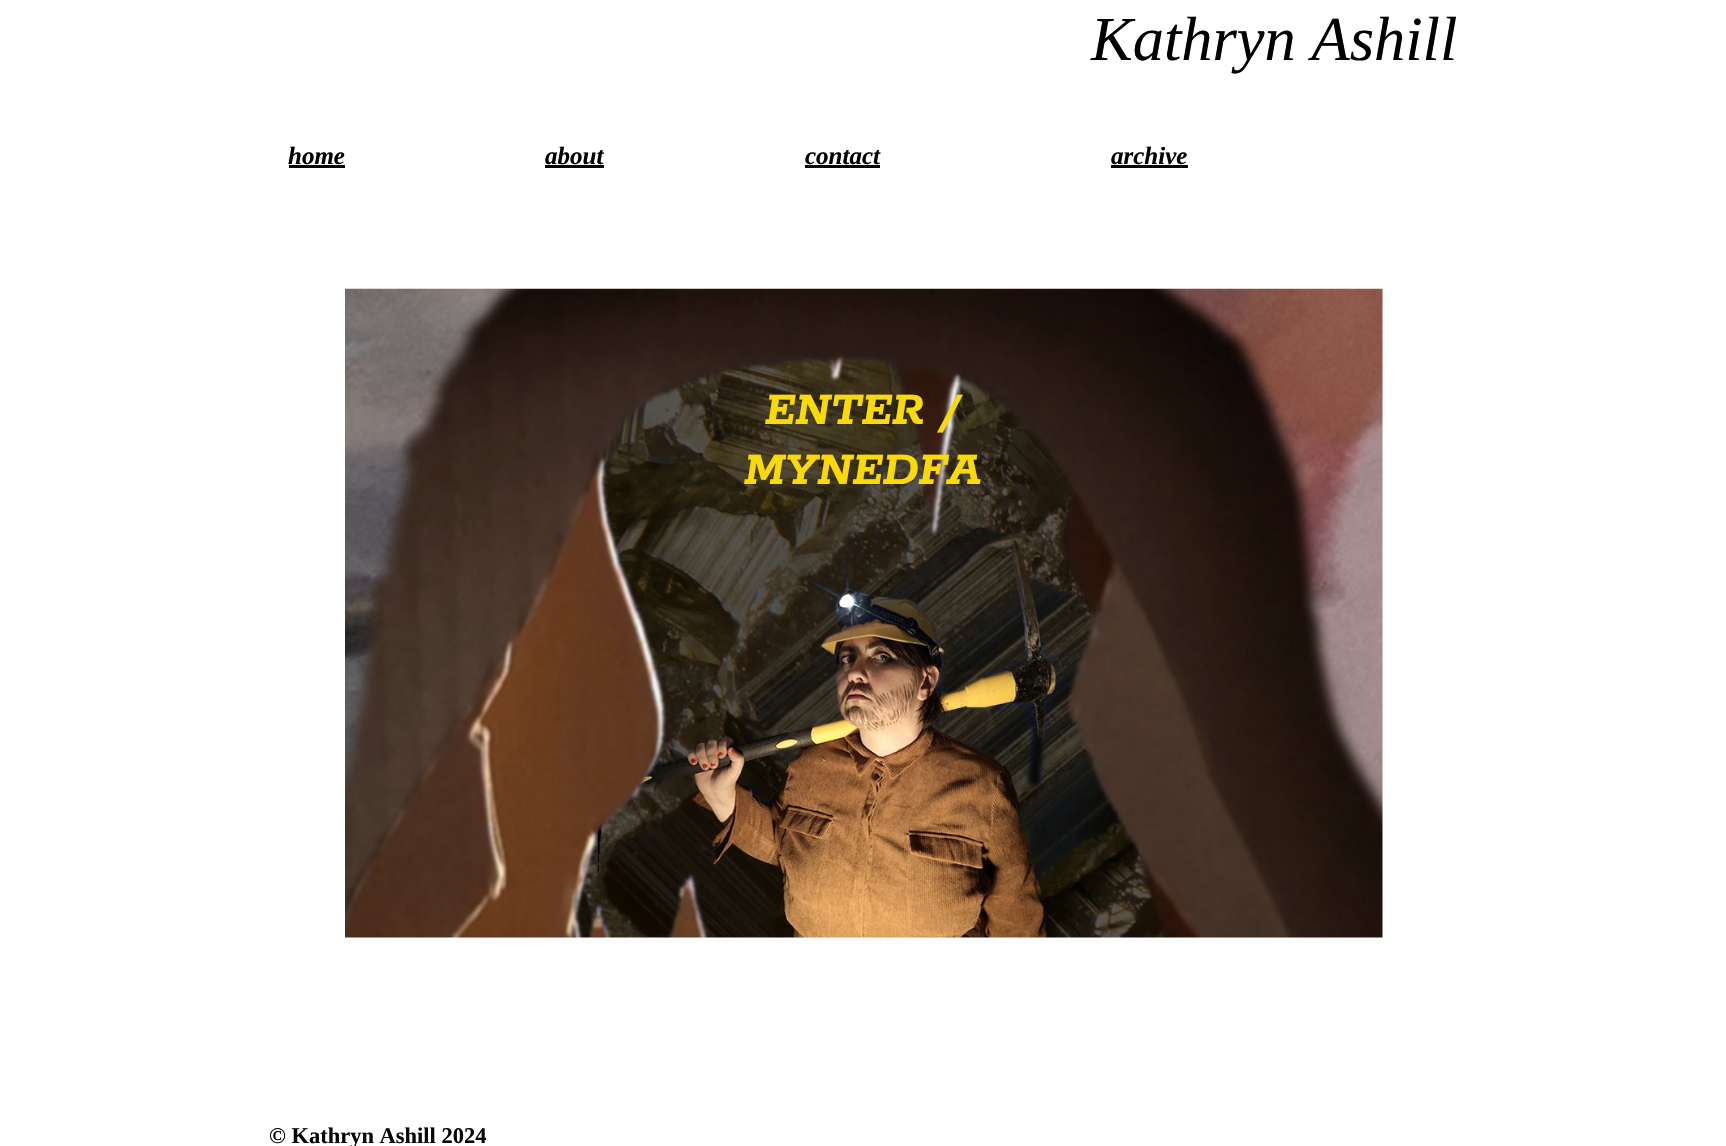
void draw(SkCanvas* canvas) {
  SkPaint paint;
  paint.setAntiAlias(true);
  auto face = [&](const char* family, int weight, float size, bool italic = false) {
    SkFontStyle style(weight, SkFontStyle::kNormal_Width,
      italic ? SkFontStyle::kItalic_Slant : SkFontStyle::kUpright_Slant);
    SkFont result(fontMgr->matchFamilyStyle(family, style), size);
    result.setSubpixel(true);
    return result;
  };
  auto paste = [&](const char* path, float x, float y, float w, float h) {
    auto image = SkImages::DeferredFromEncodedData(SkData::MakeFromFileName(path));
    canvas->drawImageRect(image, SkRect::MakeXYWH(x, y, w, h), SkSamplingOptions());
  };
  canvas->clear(0xffffffff);
  {
    const struct { float x, y, w, h; SkColor color; } items[] = {
      {289, 165, 56, 3, 0xff020200},
      {545, 165, 59, 3, 0xff020200},
      {805, 165, 75, 3, 0xff020200},
      {1111, 165, 77, 3, 0xff020200},
    };
    for (auto [x, y, w, h, color] : items) {
      paint.setColor(color);
      canvas->drawRect(SkRect::MakeXYWH(x, y, w, h), paint);
    }
  }
  paste("img/1.png", 345, 288, 1038, 650);
  auto f0 = face("Liberation Serif", 400, 62.5f, true);
  paint.setColor(0xff000000);
  canvas->drawString("Kathryn Ashill", 1091, 60, f0, paint);
  auto f1 = face("Liberation Serif", 700, 25, true);
  {
    const struct { const char* s; float x, y; } items[] = {
      {"home", 288, 164},
      {"about", 545, 164},
      {"contact", 805, 164},
      {"archive", 1111, 164},
    };
    for (auto [s, x, y] : items) {
      canvas->drawString(s, x, y, f1, paint);
    }
  }
  auto f2 = face("Rokkitt", 700, 50, true);
  paint.setColor(0xfff9da07);
  canvas->drawString("ENTER /", 765, 424, f2, paint);
  canvas->drawString("MYNEDFA", 744, 484, f2, paint);
  auto f3 = face("Liberation Serif", 700, 22.5f);
  paint.setColor(0xff070707);
  canvas->drawString("© Kathryn Ashill 2024", 269, 1143, f3, paint);
}
